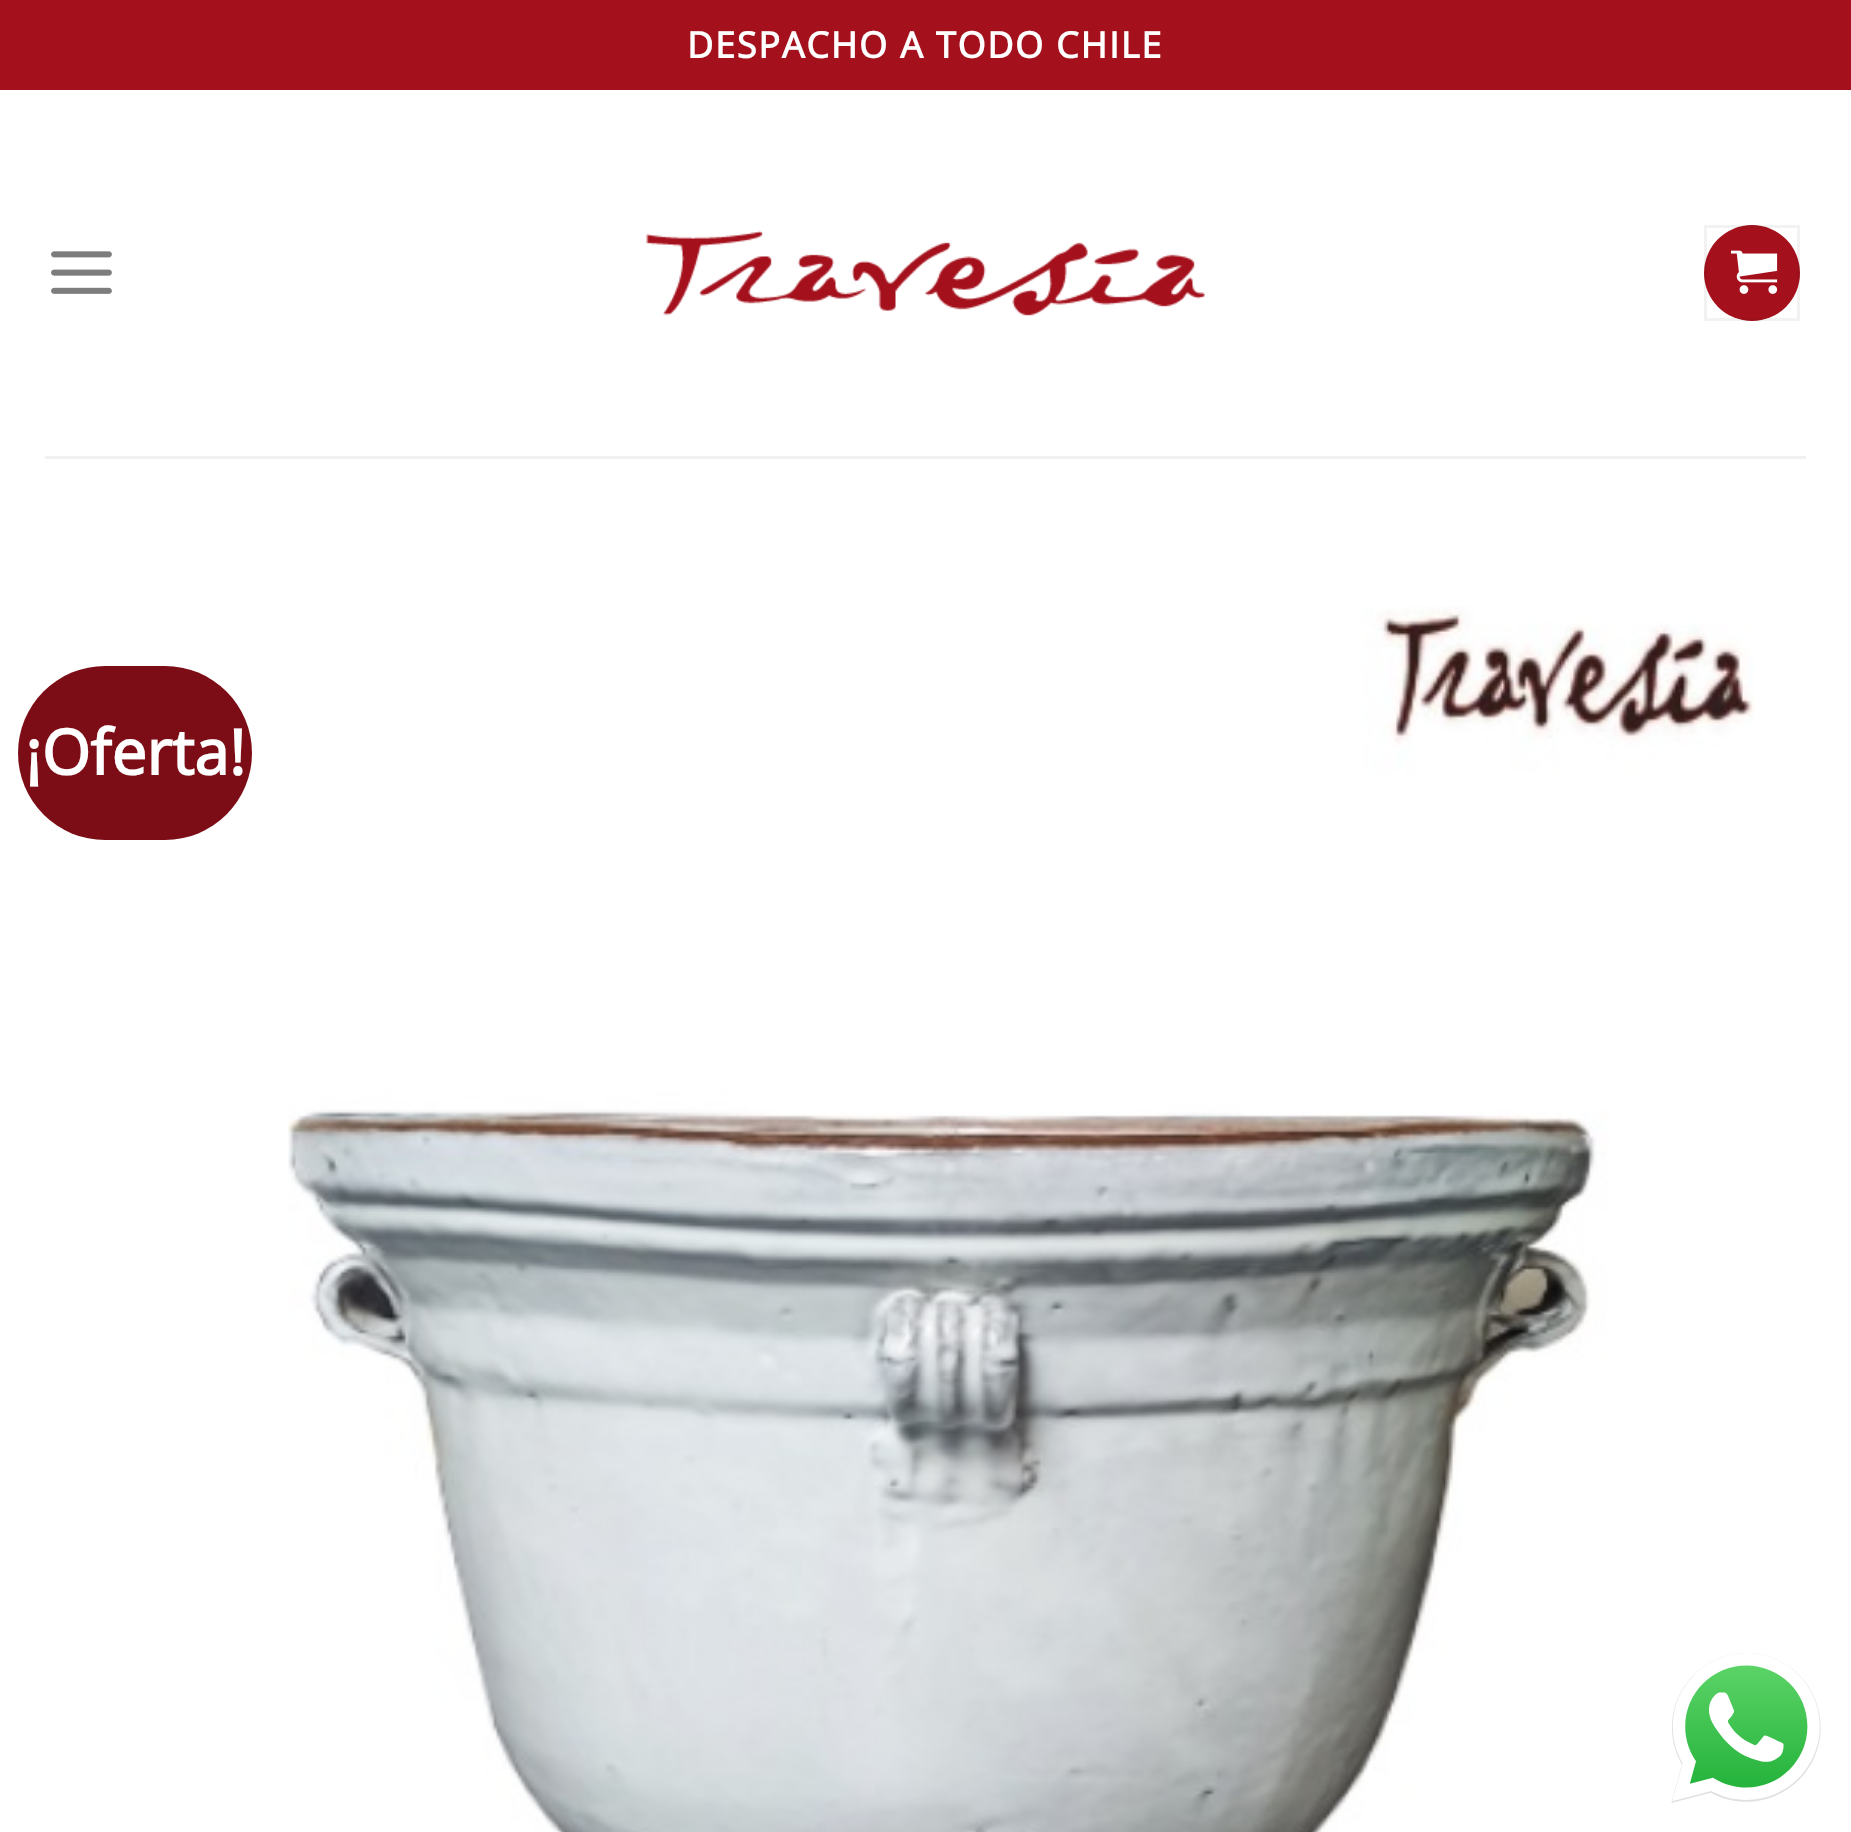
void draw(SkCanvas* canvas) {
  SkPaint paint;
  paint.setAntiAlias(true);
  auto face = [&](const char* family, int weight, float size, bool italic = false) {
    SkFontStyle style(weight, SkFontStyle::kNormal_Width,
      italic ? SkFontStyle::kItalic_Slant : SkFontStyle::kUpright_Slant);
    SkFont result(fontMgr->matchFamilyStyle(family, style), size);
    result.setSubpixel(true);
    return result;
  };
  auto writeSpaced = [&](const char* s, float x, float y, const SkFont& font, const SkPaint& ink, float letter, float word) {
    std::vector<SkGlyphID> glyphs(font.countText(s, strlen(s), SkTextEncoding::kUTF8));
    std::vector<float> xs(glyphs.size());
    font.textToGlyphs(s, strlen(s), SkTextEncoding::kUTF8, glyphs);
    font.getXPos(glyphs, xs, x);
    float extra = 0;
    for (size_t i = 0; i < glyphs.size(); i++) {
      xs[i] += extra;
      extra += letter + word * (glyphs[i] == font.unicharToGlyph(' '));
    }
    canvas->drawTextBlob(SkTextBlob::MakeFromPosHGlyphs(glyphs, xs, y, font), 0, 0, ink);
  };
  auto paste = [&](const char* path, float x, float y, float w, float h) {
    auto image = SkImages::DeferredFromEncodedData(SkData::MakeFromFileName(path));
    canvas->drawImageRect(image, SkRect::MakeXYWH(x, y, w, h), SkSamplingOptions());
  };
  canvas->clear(0xffffffff);
  paint.setColor(0xffa4111d);
  canvas->drawRect(SkRect::MakeXYWH(0, 0, 1851, 90), paint);
  paste("img/1.png", 51, 251, 61, 43);
  paste("img/2.png", 646, 230, 559, 86);
  canvas->drawCircle(1752, 273, 48, paint);
  paint.setStroke(true);
  paint.setStrokeWidth(3);
  paint.setColor(0x0d000000);
  canvas->drawRect(SkRect::MakeXYWH(1705.5f, 226.5f, 93, 93), paint);
  paste("img/3.png", 1731, 250, 47, 44);
  paint.setStroke(false);
  paint.setColor(0xfff1f1f1);
  canvas->drawRect(SkRect::MakeXYWH(45, 456, 1761, 3), paint);
  paint.setColor(0xff7c0d16);
  canvas->drawRoundRect(SkRect::MakeXYWH(18, 666, 234, 174), 87, 87, paint);
  paste("img/4.png", 288, 606, 1467, 1226);
  paste("img/5.png", 1671, 1653, 150, 150);
  auto f0 = face("Open Sans", 700, 36);
  paint.setColor(0xffffffff);
  writeSpaced("DESPACHO A TODO CHILE", 687, 58, f0, paint, 1.8f, 0);
  auto f1 = face("Open Sans", 700, 62.5f);
  canvas->drawString("¡Oferta!", 25, 775, f1, paint);
}
